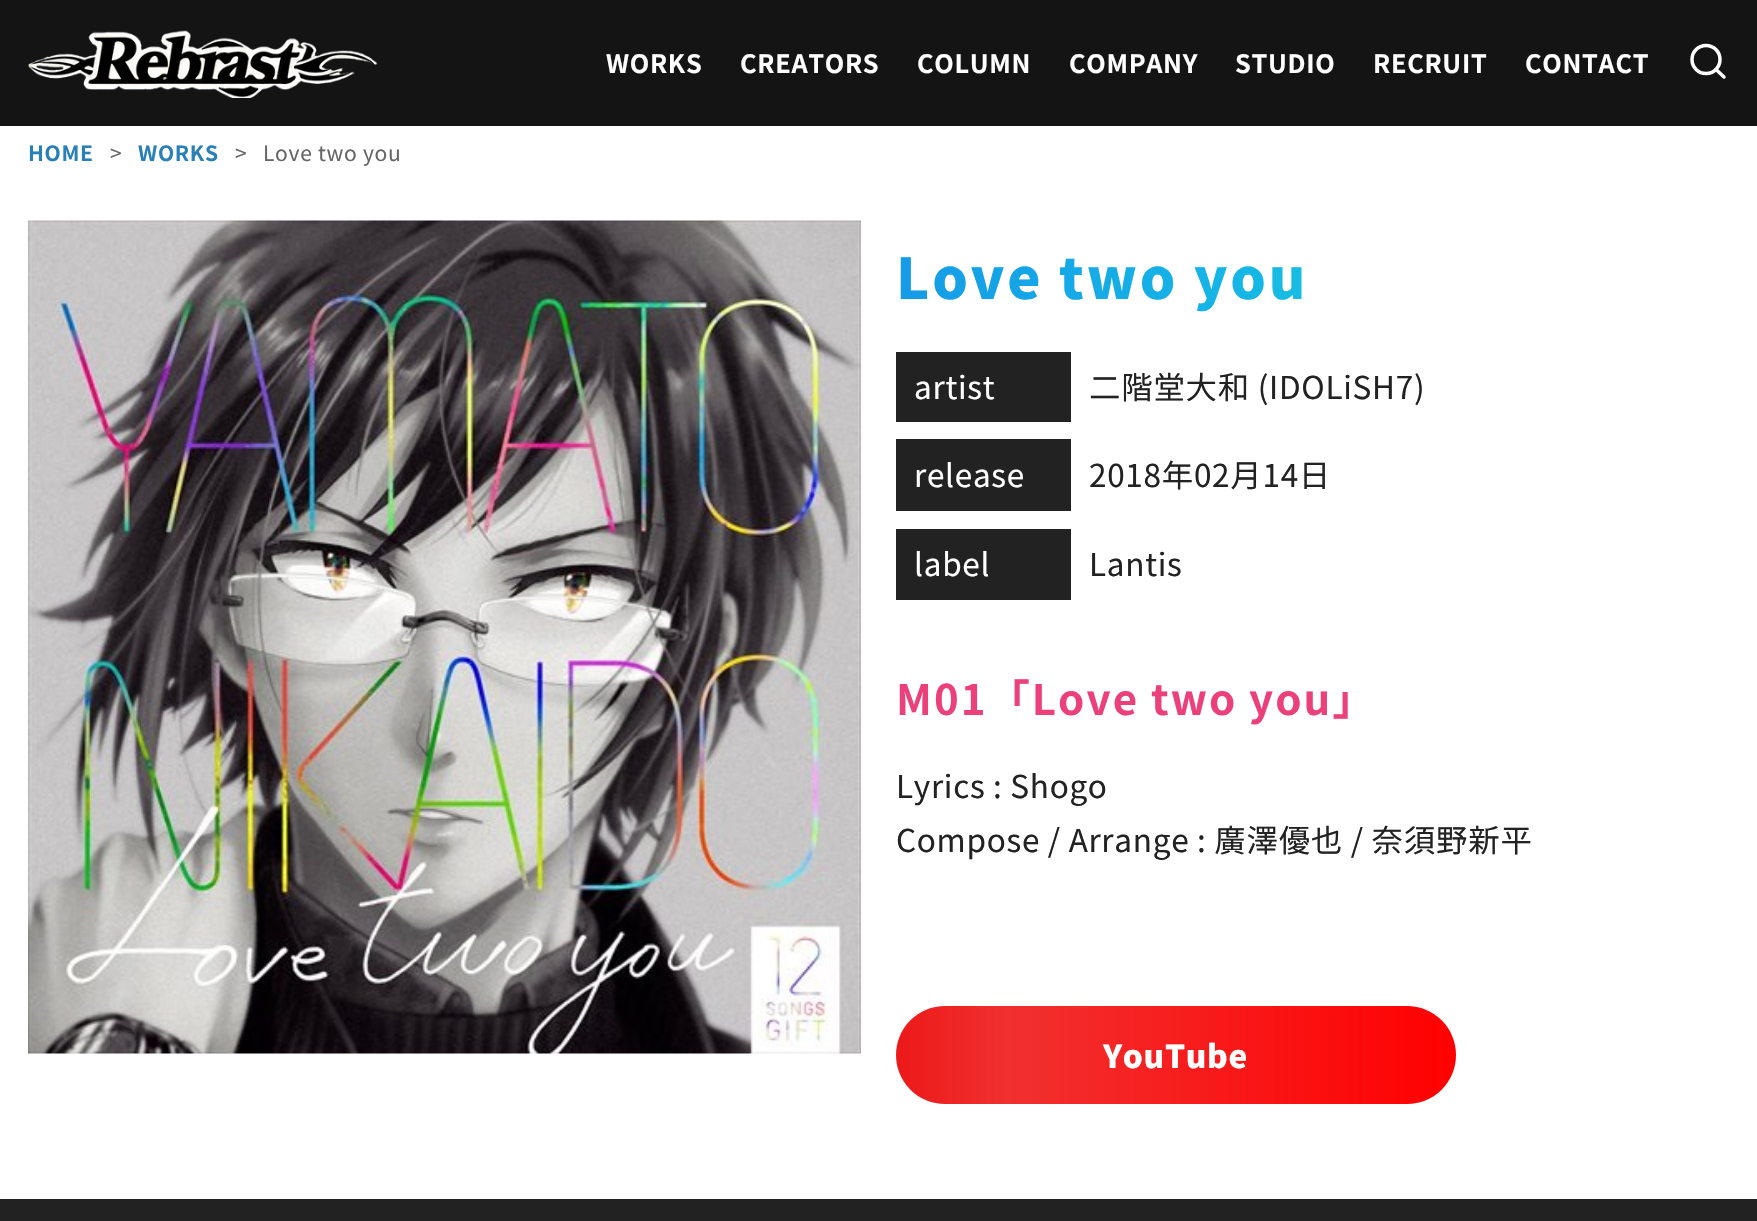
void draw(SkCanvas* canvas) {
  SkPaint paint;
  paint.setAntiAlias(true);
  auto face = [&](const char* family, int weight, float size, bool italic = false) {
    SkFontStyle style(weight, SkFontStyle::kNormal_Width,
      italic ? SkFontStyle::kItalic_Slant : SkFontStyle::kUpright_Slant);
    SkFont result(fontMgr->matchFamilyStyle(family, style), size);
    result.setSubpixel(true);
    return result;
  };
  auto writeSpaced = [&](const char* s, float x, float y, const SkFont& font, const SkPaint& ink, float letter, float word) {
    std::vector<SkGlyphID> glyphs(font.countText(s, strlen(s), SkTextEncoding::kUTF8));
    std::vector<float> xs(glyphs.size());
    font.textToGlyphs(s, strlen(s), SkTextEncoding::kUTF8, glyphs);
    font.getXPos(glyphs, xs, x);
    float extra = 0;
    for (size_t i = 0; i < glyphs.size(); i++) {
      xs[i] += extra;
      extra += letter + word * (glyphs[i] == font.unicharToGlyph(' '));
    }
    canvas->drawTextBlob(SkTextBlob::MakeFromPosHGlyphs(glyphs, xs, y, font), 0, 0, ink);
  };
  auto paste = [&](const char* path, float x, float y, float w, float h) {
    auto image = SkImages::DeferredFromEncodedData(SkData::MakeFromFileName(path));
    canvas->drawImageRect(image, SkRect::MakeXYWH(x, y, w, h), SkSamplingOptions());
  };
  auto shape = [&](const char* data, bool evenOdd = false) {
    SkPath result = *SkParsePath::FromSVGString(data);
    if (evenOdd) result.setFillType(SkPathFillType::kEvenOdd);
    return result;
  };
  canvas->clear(0xffffffff);
  paint.setColor(0xff141414);
  canvas->drawRect(SkRect::MakeXYWH(0, 0, 1757, 126), paint);
  paste("img/1.png", 28, 29, 350, 69);
  paint.setStroke(true);
  paint.setStrokeWidth(3.5f);
  paint.setColor(0xffffffff);
  canvas->drawCircle(1706, 59.5f, 14, paint);
  paint.setStrokeCap(SkPaint::kRound_Cap);
  paint.setStrokeJoin(SkPaint::kRound_Join);
  canvas->drawPath(shape("M1724 77L1716 69.5"), paint);
  paste("img/2.png", 28, 220, 833, 834);
  paint.setStroke(false);
  {
    const struct { float x, y, w, h; SkColor color; } items[] = {
      {896, 352, 175, 70, 0xff222222},
      {896, 439, 175, 72, 0xff222222},
      {896, 529, 175, 71, 0xff222222},
    };
    for (auto [x, y, w, h, color] : items) {
      paint.setColor(color);
      canvas->drawRect(SkRect::MakeXYWH(x, y, w, h), paint);
    }
  }
  {
    const SkColor colors[] = {0xffff0000, 0xfffc0c0c, 0xfff91818, 0xfff52424, 0xfff13030, 0xffed1919};
    const float stops[] = {0, 0.2f, 0.4f, 0.6f, 0.8f, 1};
    const SkPoint ends[] = {{1456, 1055}, {896, 1055}};
    paint.setShader(SkGradientShader::MakeLinear(ends, colors, stops, 6, SkTileMode::kClamp));
    paint.setAlpha(255);
  }
  canvas->drawRoundRect(SkRect::MakeXYWH(896, 1006, 560, 98), 49, 49, paint);
  paint.setShader(nullptr);
  paint.setColor(0xff222222);
  canvas->drawRect(SkRect::MakeXYWH(0, 1199, 1757, 22), paint);
  auto f0 = face("Noto Sans JP", 700, 25.25f);
  paint.setColor(0xffffffff);
  {
    const struct { const char* s; float x, y; } items[] = {
      {"WORKS", 606, 73},
      {"CREATORS", 740, 73},
      {"COLUMN", 917, 73},
      {"COMPANY", 1069, 73},
      {"STUDIO", 1235, 73},
      {"RECRUIT", 1373, 73},
      {"CONTACT", 1525, 73},
    };
    for (auto [s, x, y] : items) {
      writeSpaced(s, x, y, f0, paint, 0.7f, 0);
    }
  }
  auto f1 = face("Noto Sans JP", 700, 21);
  paint.setColor(0xff2980b9);
  writeSpaced("HOME", 28, 161, f1, paint, 0.7f, 0);
  auto f2 = face("Noto Sans JP", 400, 21);
  paint.setColor(0xff656565);
  writeSpaced(">", 110, 161, f2, paint, 0.7f, 0);
  paint.setColor(0xff2980b9);
  writeSpaced("WORKS", 138, 161, f1, paint, 0.7f, 0);
  paint.setColor(0xff656565);
  writeSpaced(">", 235, 161, f2, paint, 0.7f, 0);
  writeSpaced("Love two you", 263, 161, f2, paint, 0.7f, 0);
  auto f3 = face("Noto Sans JP", 900, 56);
  {
    const SkColor colors[] = {0xff159be8, 0xff15a2e7, 0xff15a8e7, 0xff15afe6, 0xff15b5e6, 0xff16bde1};
    const float stops[] = {0, 0.2f, 0.4f, 0.6f, 0.8f, 1};
    const SkPoint ends[] = {{896, 277}, {1309, 277}};
    paint.setShader(SkGradientShader::MakeLinear(ends, colors, stops, 6, SkTileMode::kClamp));
    paint.setAlpha(255);
  }
  writeSpaced("Love two you", 896, 299, f3, paint, 2.75f, 0);
  auto f4 = face("Noto Sans JP", 400, 31.5f);
  paint.setShader(nullptr);
  paint.setColor(0xffffffff);
  writeSpaced("artist", 914, 399, f4, paint, 0.7f, 0);
  paint.setColor(0xff222222);
  writeSpaced("二階堂大和 (IDOLiSH7)", 1089, 399, f4, paint, 0.7f, 0);
  paint.setColor(0xffffffff);
  writeSpaced("release", 914, 487, f4, paint, 0.7f, 0);
  paint.setColor(0xff222222);
  writeSpaced("2018年02月14日", 1089, 487, f4, paint, 0.7f, 0);
  paint.setColor(0xffffffff);
  writeSpaced("label", 914, 576, f4, paint, 0.7f, 0);
  paint.setColor(0xff222222);
  writeSpaced("Lantis", 1089, 576, f4, paint, 0.7f, 0);
  auto f5 = face("Noto Sans JP", 700, 42);
  paint.setColor(0xffec407a);
  writeSpaced("M01「Love two you」", 896, 715, f5, paint, 2.1f, 0);
  paint.setColor(0xff222222);
  writeSpaced("Lyrics : Shogo", 896, 798, f4, paint, 0.7f, 0);
  writeSpaced("Compose / Arrange : 廣澤優也 / 奈須野新平", 896, 852, f4, paint, 0.7f, 0);
  auto f6 = face("Noto Sans JP", 900, 31.5f);
  paint.setColor(0xffffffff);
  writeSpaced("YouTube", 1103, 1068, f6, paint, 0.7f, 0);
}
